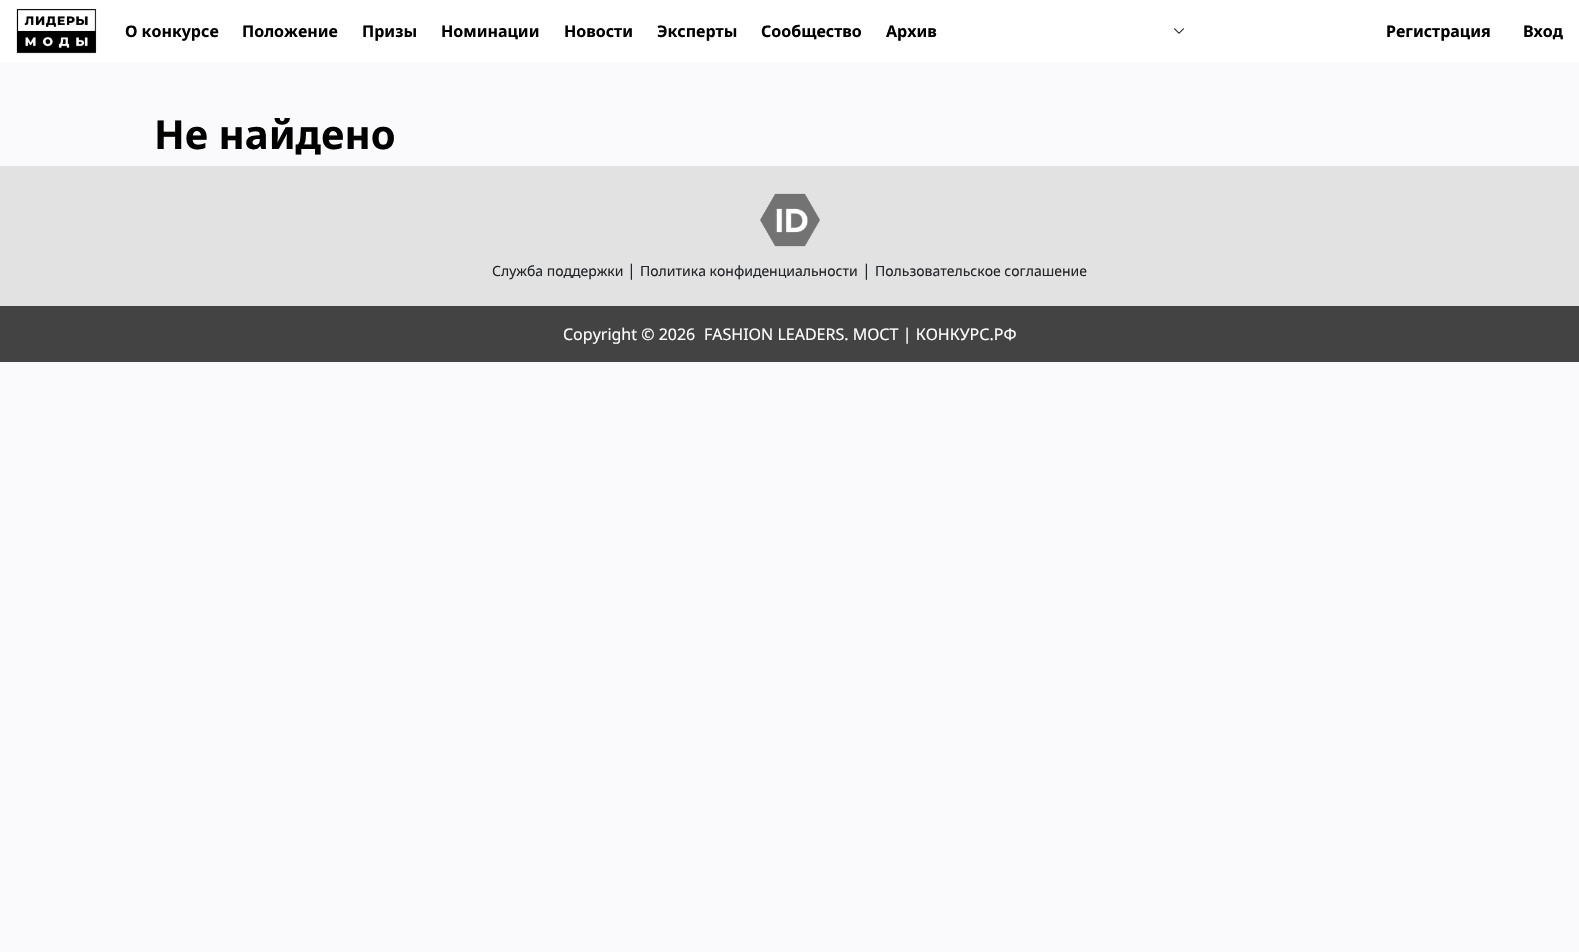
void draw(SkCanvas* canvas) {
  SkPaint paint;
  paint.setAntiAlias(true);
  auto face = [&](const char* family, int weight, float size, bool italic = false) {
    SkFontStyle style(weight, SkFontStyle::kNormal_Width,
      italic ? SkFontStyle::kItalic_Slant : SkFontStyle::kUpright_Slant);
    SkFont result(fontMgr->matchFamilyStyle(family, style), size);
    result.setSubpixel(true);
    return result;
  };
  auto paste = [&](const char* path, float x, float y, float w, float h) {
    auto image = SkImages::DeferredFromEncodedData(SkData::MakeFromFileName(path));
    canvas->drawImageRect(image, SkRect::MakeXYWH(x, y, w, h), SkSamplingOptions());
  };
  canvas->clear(0xfffafafc);
  paint.setColor(0xffffffff);
  canvas->drawRect(SkRect::MakeXYWH(0, 0, 1579, 62), paint);
  paste("img/1.png", 16, 8, 81, 46);
  paste("img/2.png", 1174, 28, 10, 6);
  paint.setColor(0xffe2e2e2);
  canvas->drawRect(SkRect::MakeXYWH(0, 166, 1579, 140), paint);
  paste("img/3.png", 760, 193, 60, 54);
  paint.setColor(0xff434343);
  canvas->drawRect(SkRect::MakeXYWH(0, 306, 1579, 56), paint);
  auto f0 = face("Noto Sans", 700, 16);
  paint.setColor(0xff000000);
  {
    const struct { const char* s; float x, y; } items[] = {
      {"О конкурсе", 125, 37},
      {"Положение", 242, 37},
      {"Призы", 362, 37},
      {"Номинации", 441, 37},
      {"Новости", 564, 37},
      {"Эксперты", 657, 37},
      {"Сообщество", 761, 37},
      {"Архив", 886, 37},
      {"Регистрация", 1386, 37},
      {"Вход", 1523, 37},
    };
    for (auto [s, x, y] : items) {
      canvas->drawString(s, x, y, f0, paint);
    }
  }
  auto f1 = face("Noto Sans", 700, 40);
  canvas->drawString("Не найдено", 154, 149, f1, paint);
  auto f2 = face("Noto Sans", 400, 14);
  paint.setColor(0xff212529);
  canvas->drawString("Служба поддержки", 492, 276, f2, paint);
  auto f3 = face("Noto Sans", 400, 16);
  canvas->drawString("|", 627, 276, f3, paint);
  canvas->drawString("Политика конфиденциальности", 640, 276, f2, paint);
  canvas->drawString("|", 862, 276, f3, paint);
  canvas->drawString("Пользовательское соглашение", 875, 276, f2, paint);
  paint.setColor(0xffffffff);
  canvas->drawString("Copyright © 2026", 563, 340, f3, paint);
  canvas->drawString("FASHION LEADERS. МОСТ | КОНКУРС.РФ", 704, 340, f3, paint);
}
